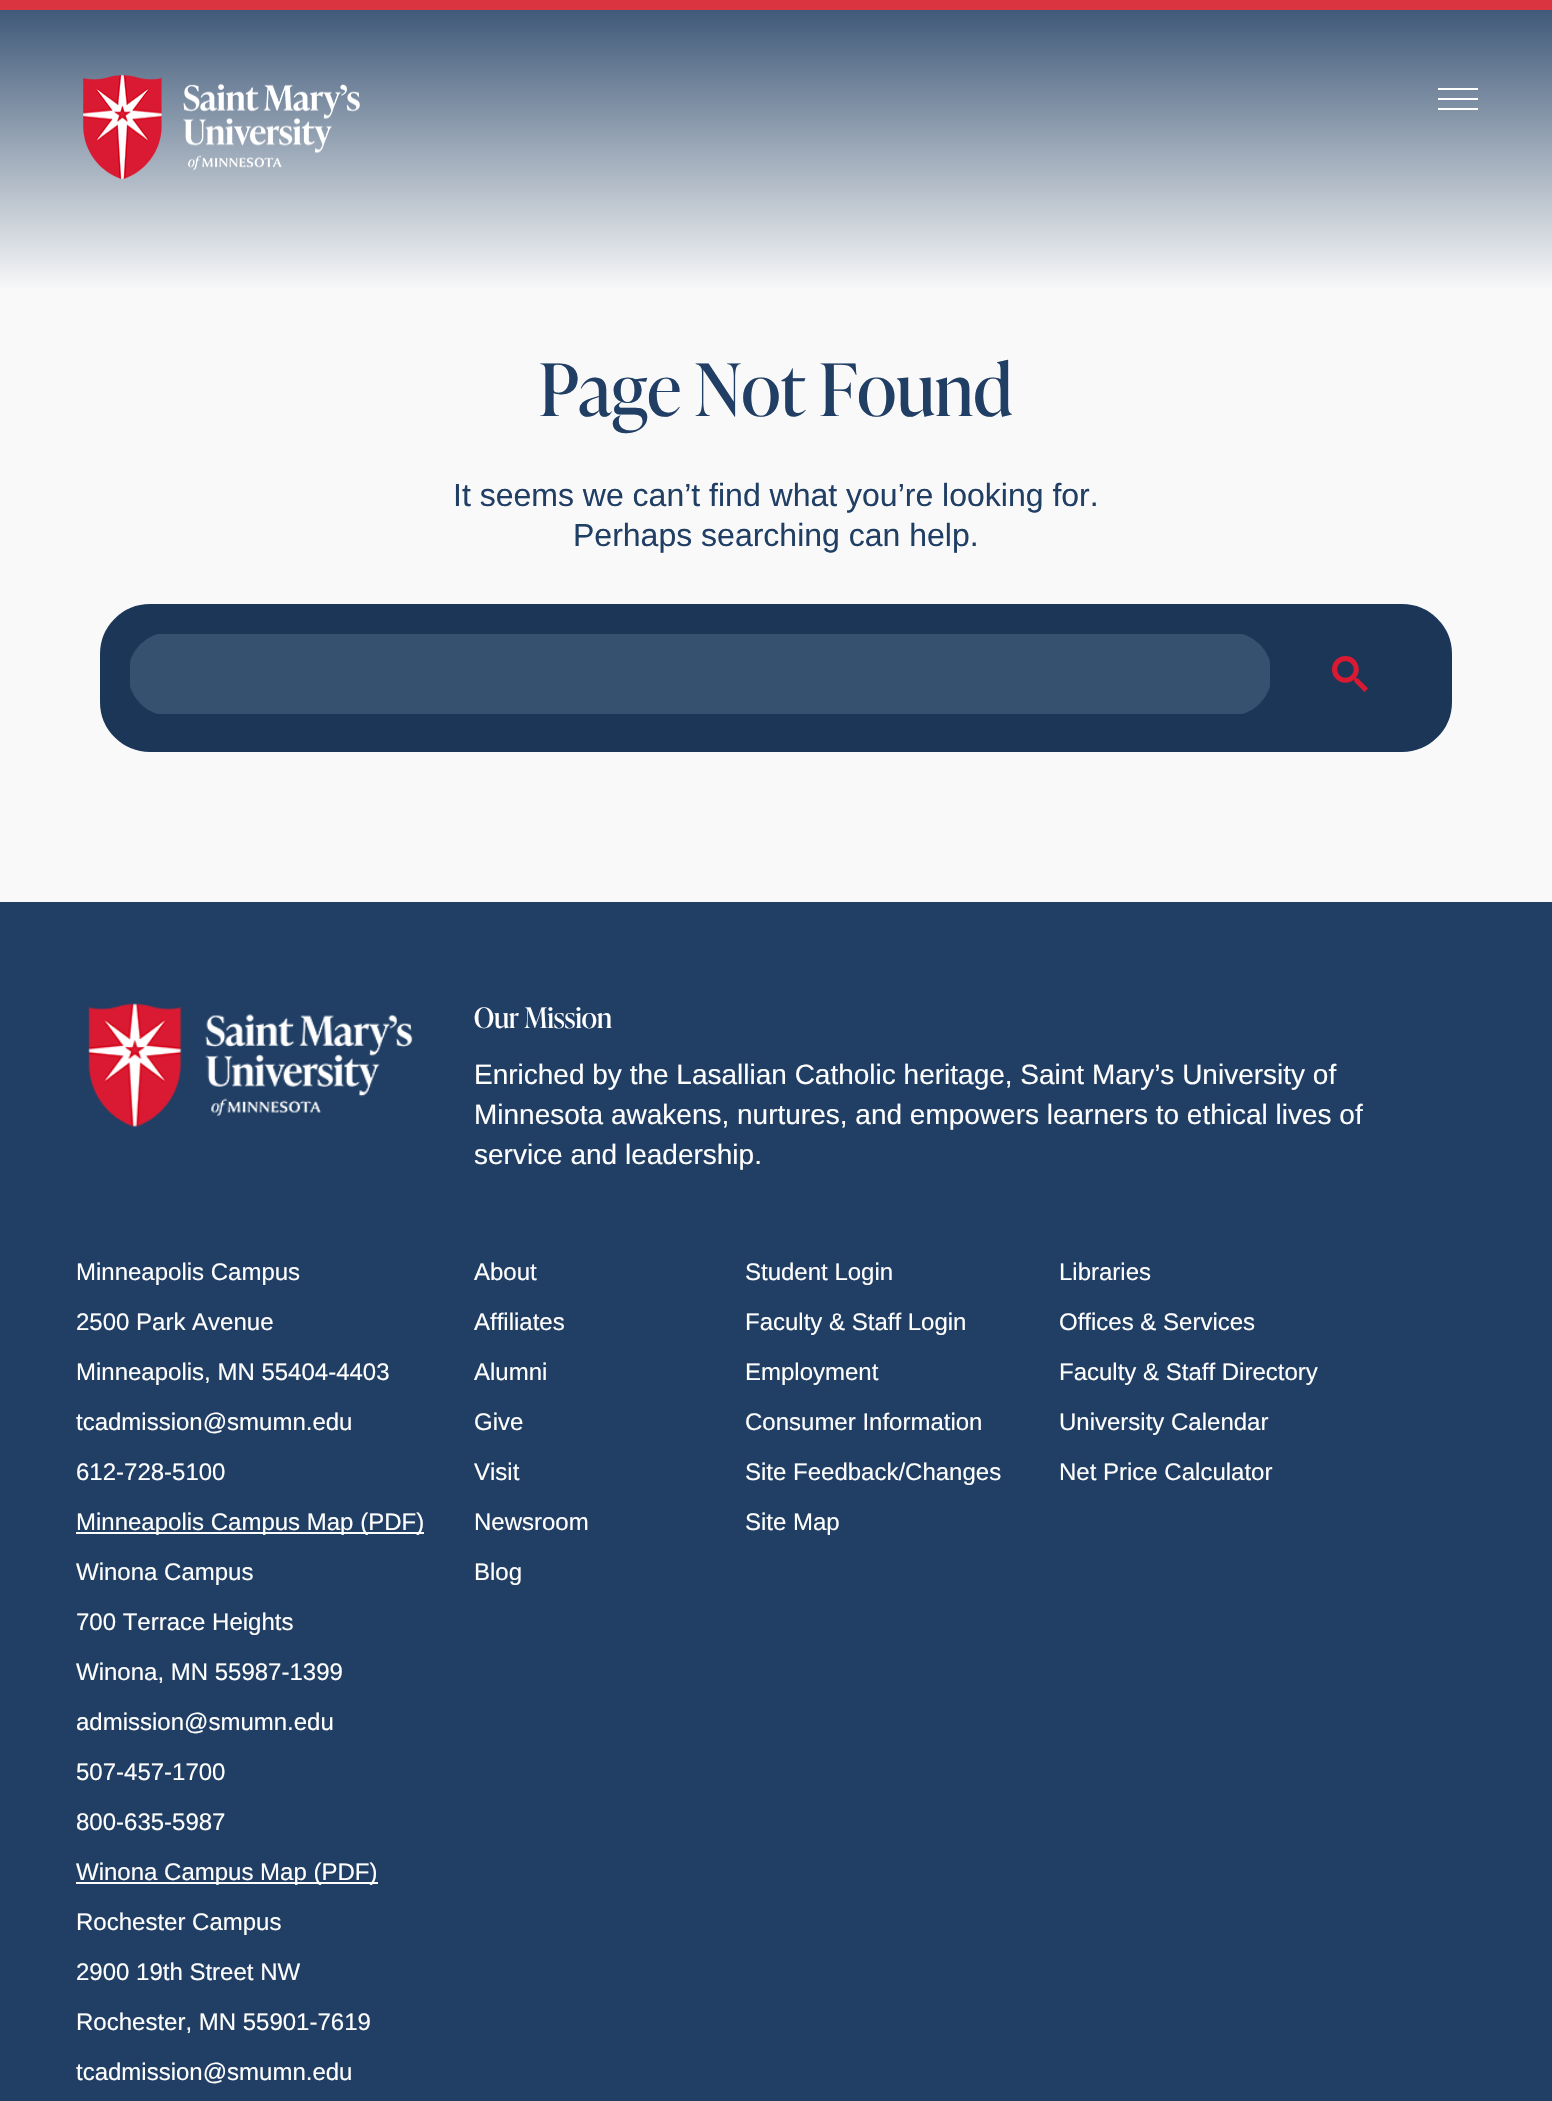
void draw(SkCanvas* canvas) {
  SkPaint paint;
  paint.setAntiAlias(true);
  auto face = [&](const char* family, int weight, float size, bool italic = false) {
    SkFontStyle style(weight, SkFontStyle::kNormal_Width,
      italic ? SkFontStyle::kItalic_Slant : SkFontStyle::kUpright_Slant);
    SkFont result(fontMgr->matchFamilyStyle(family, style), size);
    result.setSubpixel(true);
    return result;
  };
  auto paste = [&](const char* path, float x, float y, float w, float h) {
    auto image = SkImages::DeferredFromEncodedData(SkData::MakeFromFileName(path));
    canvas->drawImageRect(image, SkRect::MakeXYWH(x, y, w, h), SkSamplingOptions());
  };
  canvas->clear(0xfff9f9f9);
  {
    const SkColor colors[] = {0xff405a79, 0xfff8f8f8};
    const float stops[] = {0, 1};
    const SkPoint ends[] = {{776, 10}, {776, 290}};
    paint.setShader(SkGradientShader::MakeLinear(ends, colors, stops, 2, SkTileMode::kClamp));
    paint.setAlpha(255);
  }
  canvas->drawRect(SkRect::MakeXYWH(0, 10, 1552, 278), paint);
  paint.setShader(nullptr);
  paint.setColor(0xffdb3441);
  canvas->drawRect(SkRect::MakeXYWH(0, 0, 1552, 10), paint);
  paste("img/1.png", 83, 75, 277, 105);
  {
    const struct { float x, y, w, h; SkColor color; } items[] = {
      {1438, 88, 40, 2, 0xffffffff},
      {1438, 98, 40, 2, 0xffffffff},
      {1438, 108, 40, 2, 0xffffffff},
    };
    for (auto [x, y, w, h, color] : items) {
      paint.setColor(color);
      canvas->drawRect(SkRect::MakeXYWH(x, y, w, h), paint);
    }
  }
  paint.setColor(0xff1c3658);
  canvas->drawRoundRect(SkRect::MakeXYWH(101, 605, 1350, 146), 49, 49, paint);
  paint.setStroke(true);
  paint.setStrokeWidth(2);
  canvas->drawRoundRect(SkRect::MakeXYWH(101, 605, 1350, 146), 49, 49, paint);
  paint.setStroke(false);
  paint.setColor(0xff36506f);
  canvas->drawRoundRect(SkRect::MakeXYWH(128, 632, 1144, 84), 42, 42, paint);
  paint.setStroke(true);
  paint.setColor(0xff1c3658);
  canvas->drawRect(SkRect::MakeXYWH(129, 633, 1142, 82), paint);
  paste("img/2.png", 1332, 656, 36, 36);
  paint.setStroke(false);
  paint.setColor(0xff213f64);
  canvas->drawRect(SkRect::MakeXYWH(0, 902, 1552, 1199), paint);
  paste("img/3.png", 88, 1003, 325, 124);
  paint.setColor(0xffffffff);
  canvas->drawRect(SkRect::MakeXYWH(76, 1532, 348, 2), paint);
  canvas->drawRect(SkRect::MakeXYWH(76, 1882, 302, 2), paint);
  auto f0 = face("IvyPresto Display", 400, 72);
  paint.setColor(0xff213f64);
  canvas->drawString("Page Not Found", 539, 416, f0, paint);
  auto f1 = face("Liberation Sans", 400, 32);
  canvas->drawString("It seems we can’t find what you’re looking for.", 453, 506, f1, paint);
  canvas->drawString("Perhaps searching can help.", 573, 546, f1, paint);
  auto f2 = face("IvyPresto Display", 400, 28);
  paint.setColor(0xffffffff);
  canvas->drawString("Our Mission", 474, 1028, f2, paint);
  auto f3 = face("Liberation Sans", 400, 28);
  {
    const struct { const char* s; float x, y; } items[] = {
      {"Enriched by the Lasallian Catholic heritage, Saint Mary’s University of", 474, 1084},
      {"Minnesota awakens, nurtures, and empowers learners to ethical lives of", 474, 1124},
      {"service and leadership.", 474, 1164},
    };
    for (auto [s, x, y] : items) {
      canvas->drawString(s, x, y, f3, paint);
    }
  }
  auto f4 = face("Liberation Sans", 400, 24);
  {
    const struct { const char* s; float x, y; } items[] = {
      {"Minneapolis Campus", 76, 1280},
      {"2500 Park Avenue", 76, 1330},
      {"Minneapolis, MN 55404-4403", 76, 1380},
      {"tcadmission@smumn.edu", 76, 1430},
      {"612-728-5100", 76, 1480},
      {"Minneapolis Campus Map (PDF)", 76, 1530},
      {"Winona Campus", 76, 1580},
      {"700 Terrace Heights", 76, 1630},
      {"Winona, MN 55987-1399", 76, 1680},
      {"admission@smumn.edu", 76, 1730},
      {"507-457-1700", 76, 1780},
      {"800-635-5987", 76, 1830},
      {"Winona Campus Map (PDF)", 76, 1880},
      {"Rochester Campus", 76, 1930},
      {"2900 19th Street NW", 76, 1980},
      {"Rochester, MN 55901-7619", 76, 2030},
      {"tcadmission@smumn.edu", 76, 2080},
      {"About", 474, 1280},
      {"Affiliates", 474, 1330},
      {"Alumni", 474, 1380},
      {"Give", 474, 1430},
      {"Visit", 474, 1480},
      {"Newsroom", 474, 1530},
      {"Blog", 474, 1580},
      {"Student Login", 745, 1280},
      {"Faculty & Staff Login", 745, 1330},
      {"Employment", 745, 1380},
      {"Consumer Information", 745, 1430},
      {"Site Feedback/Changes", 745, 1480},
      {"Site Map", 745, 1530},
      {"Libraries", 1059, 1280},
      {"Offices & Services", 1059, 1330},
      {"Faculty & Staff Directory", 1059, 1380},
      {"University Calendar", 1059, 1430},
      {"Net Price Calculator", 1059, 1480},
    };
    for (auto [s, x, y] : items) {
      canvas->drawString(s, x, y, f4, paint);
    }
  }
}
